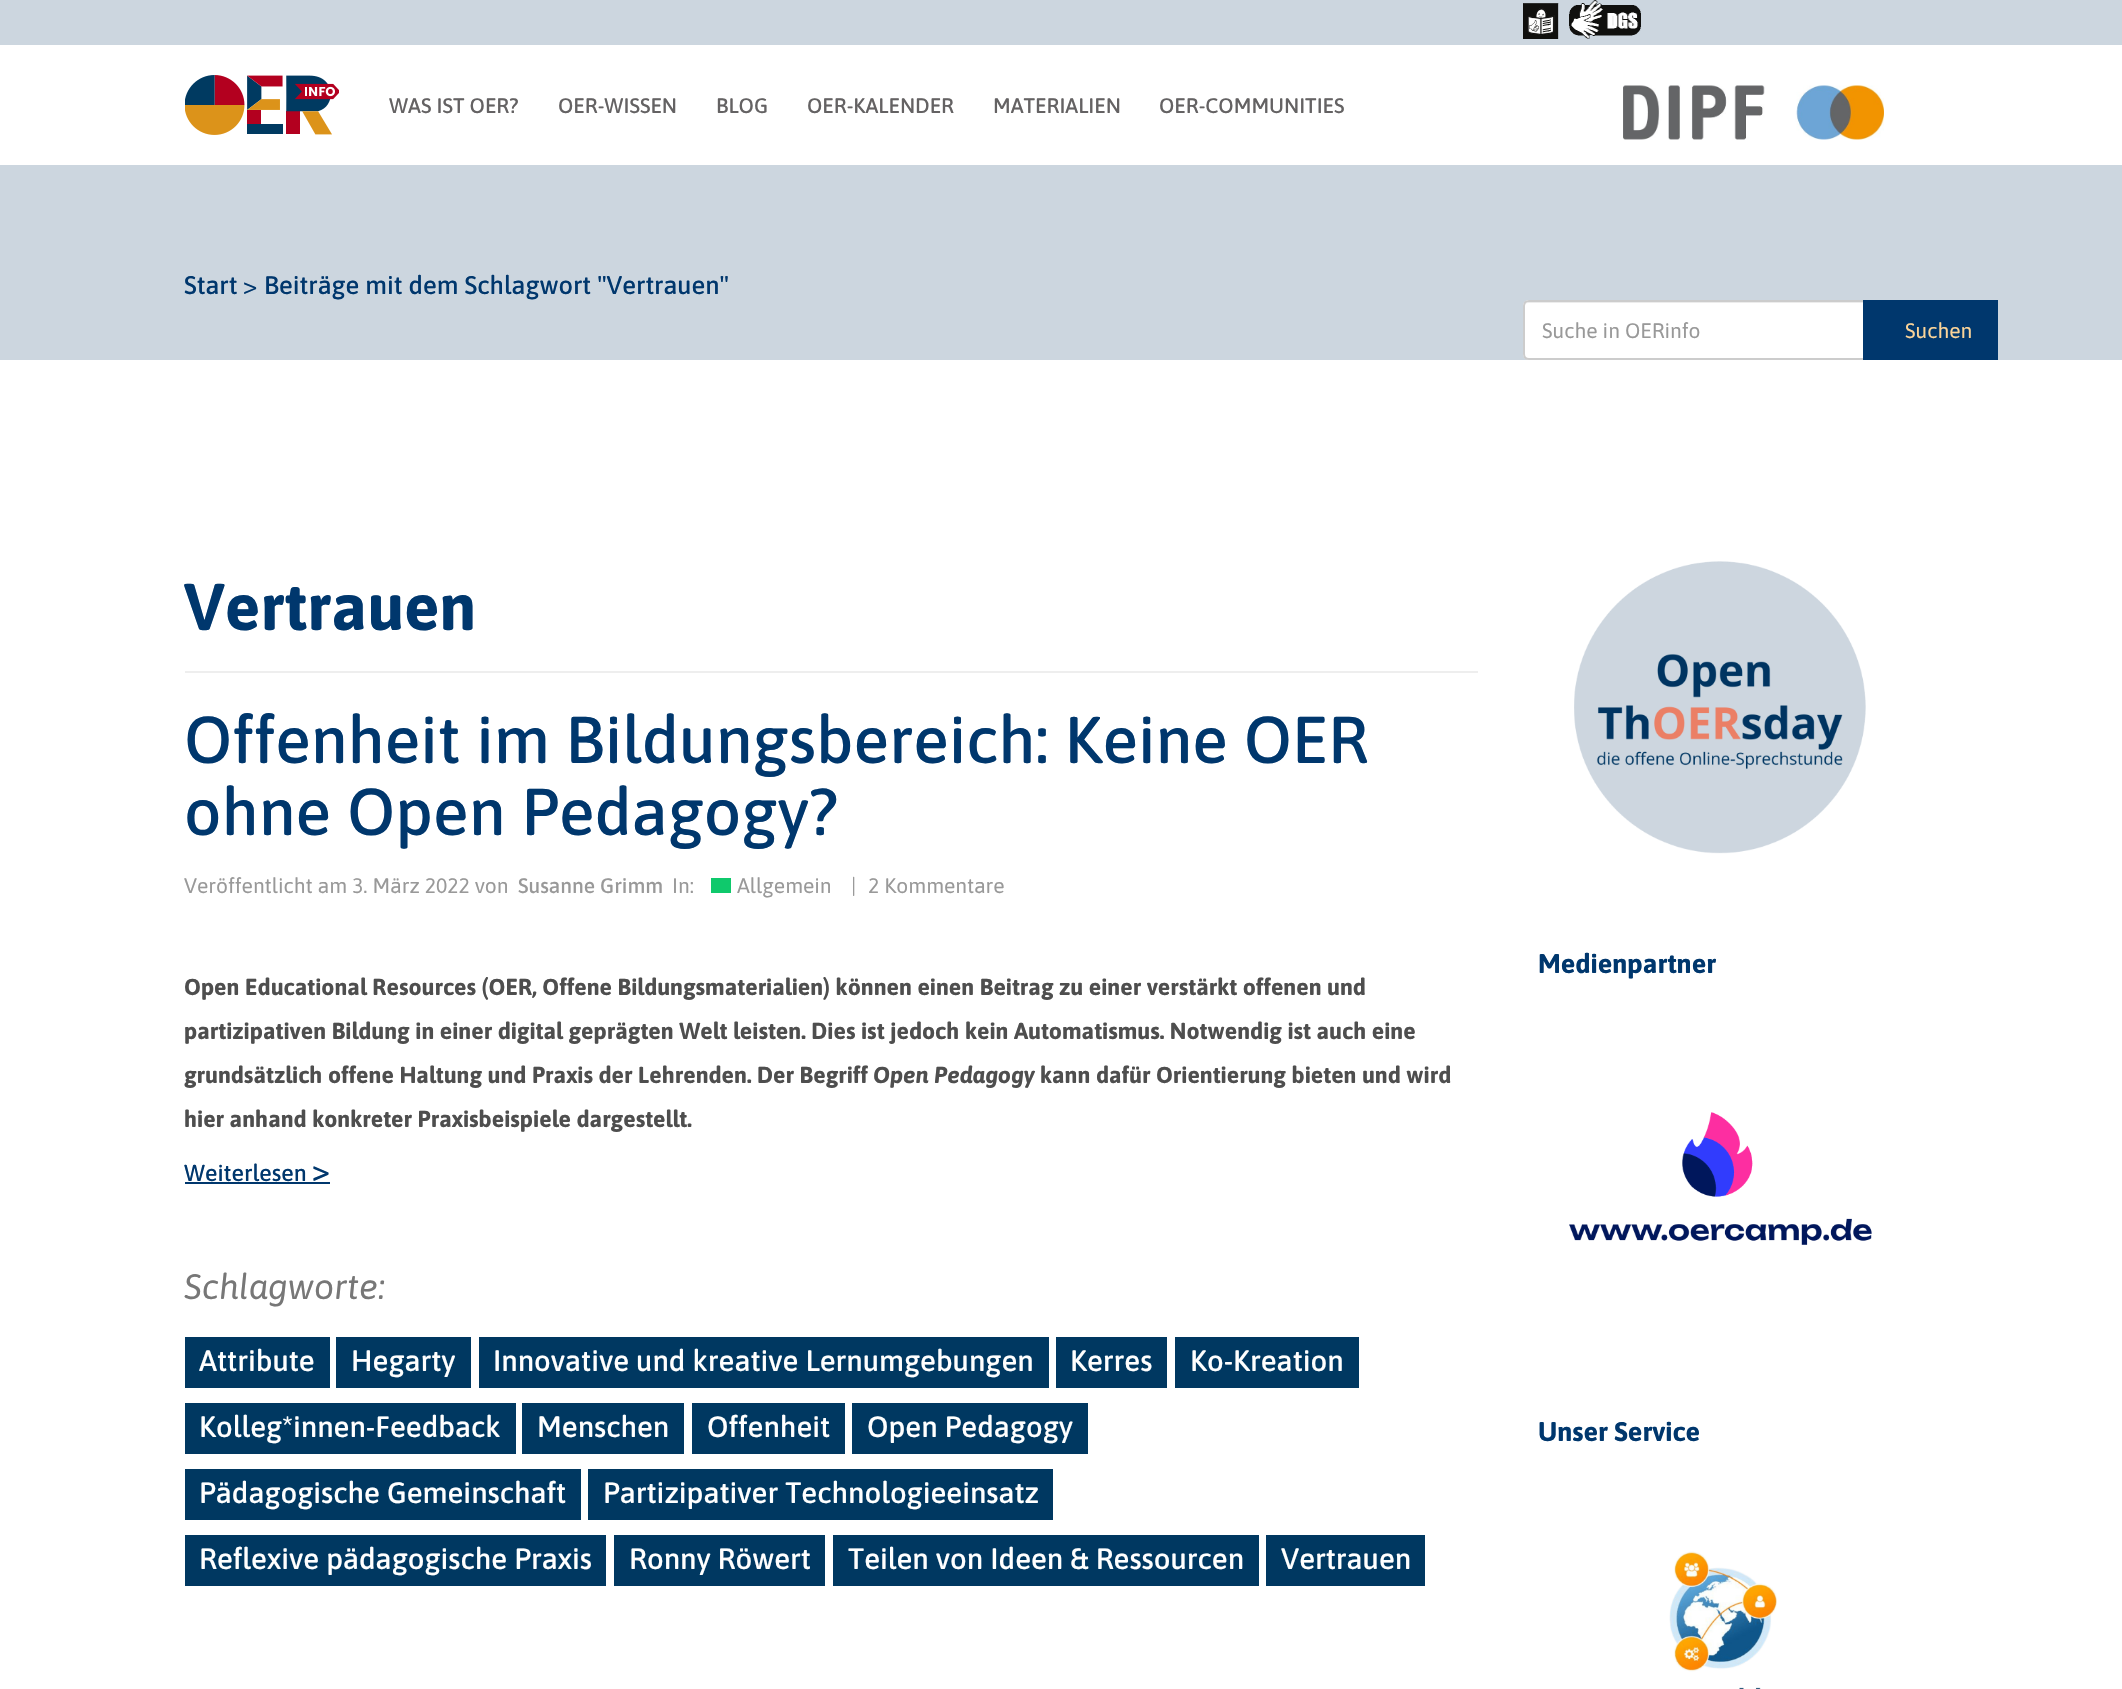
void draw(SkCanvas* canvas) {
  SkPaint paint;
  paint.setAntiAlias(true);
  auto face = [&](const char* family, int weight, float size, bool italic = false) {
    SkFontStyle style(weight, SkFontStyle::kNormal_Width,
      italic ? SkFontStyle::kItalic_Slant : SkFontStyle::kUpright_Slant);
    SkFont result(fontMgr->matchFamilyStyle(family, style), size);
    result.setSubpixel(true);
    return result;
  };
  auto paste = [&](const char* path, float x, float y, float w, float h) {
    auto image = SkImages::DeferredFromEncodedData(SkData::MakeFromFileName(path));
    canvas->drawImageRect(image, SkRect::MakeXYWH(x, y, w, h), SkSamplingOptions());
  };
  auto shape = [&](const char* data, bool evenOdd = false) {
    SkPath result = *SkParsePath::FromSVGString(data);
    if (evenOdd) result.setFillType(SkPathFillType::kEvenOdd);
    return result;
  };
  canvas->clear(0xffffffff);
  paint.setColor(0xffccd6df);
  canvas->drawRect(SkRect::MakeXYWH(0, 0, 2122, 360), paint);
  paint.setColor(0xffffffff);
  canvas->drawRect(SkRect::MakeXYWH(0, 45, 2122, 120), paint);
  paste("img/1.png", 185, 75, 154, 60);
  paste("img/2.png", 1623, 85, 261, 55);
  paste("img/3.png", 1523, 3, 36, 36);
  paste("img/4.png", 1569, 0, 72, 39);
  canvas->drawPath(shape("M1529 300H1865V360H1529C1525.5 360 1523 357.5 1523 354V306C1523 302.5 1525.5 300 1529 300Z"), paint);
  paint.setColor(0xffececec);
  canvas->drawPath(shape("M1528 303H1863V302H1529C1526 302 1524 305 1524 308C1524 305 1526 303 1528 303Z"), paint);
  paint.setStroke(true);
  paint.setStrokeWidth(2);
  paint.setColor(0xffcccccc);
  canvas->drawPath(shape("M1529 301H1864V359H1529C1526 359 1524 357 1524 354V306C1524 303 1526 301 1529 301Z"), paint);
  paint.setStroke(false);
  {
    const struct { float x, y, w, h; SkColor color; } items[] = {
      {1863, 300, 135, 60, 0xff00376d},
      {185, 671, 1293, 2, 0xffeeeeee},
      {711, 878, 20, 15, 0xff0fc96c},
      {185, 1182, 145, 2, 0xff00376d},
      {185, 1337, 145, 51, 0xff003861},
      {336, 1337, 135, 51, 0xff003861},
      {479, 1337, 570, 51, 0xff003861},
      {1056, 1337, 111, 51, 0xff003861},
      {1175, 1337, 184, 51, 0xff003861},
      {185, 1403, 331, 51, 0xff003861},
      {522, 1403, 162, 51, 0xff003861},
      {692, 1403, 153, 51, 0xff003861},
      {852, 1403, 236, 51, 0xff003861},
      {185, 1469, 396, 51, 0xff003861},
      {588, 1469, 465, 51, 0xff003861},
      {185, 1535, 421, 51, 0xff003861},
      {614, 1535, 211, 51, 0xff003861},
      {833, 1535, 426, 51, 0xff003861},
      {1266, 1535, 159, 51, 0xff003861},
    };
    for (auto [x, y, w, h, color] : items) {
      paint.setColor(color);
      canvas->drawRect(SkRect::MakeXYWH(x, y, w, h), paint);
    }
  }
  paste("img/5.png", 1574, 561, 292, 293);
  paste("img/6.png", 1569, 1112, 303, 133);
  paste("img/7.png", 1669, 1551, 108, 138);
  auto f0 = face("Asap", 500, 21);
  paint.setColor(0xff646263);
  {
    const struct { const char* s; float x, y; } items[] = {
      {"WAS IST OER?", 389, 113},
      {"OER-WISSEN", 558, 113},
      {"BLOG", 716, 113},
      {"OER-KALENDER", 807, 113},
      {"MATERIALIEN", 993, 113},
      {"OER-COMMUNITIES", 1159, 113},
    };
    for (auto [s, x, y] : items) {
      canvas->drawString(s, x, y, f0, paint);
    }
  }
  auto f1 = face("Asap", 500, 25.5f);
  paint.setColor(0xff00376d);
  canvas->drawString("Start", 184, 294, f1, paint);
  auto f2 = face("Asap", 400, 25.5f);
  canvas->drawString(">", 243, 294, f2, paint);
  canvas->drawString("Beiträge mit dem Schlagwort \"Vertrauen\"", 264, 294, f1, paint);
  auto f3 = face("Asap", 400, 21);
  paint.setColor(0xff999999);
  canvas->drawString("Suche in OERinfo", 1542, 338, f3, paint);
  paint.setColor(0xfffbd499);
  canvas->drawString("Suchen", 1905, 338, f3, paint);
  auto f4 = face("Asap", 700, 66);
  paint.setColor(0xff00376d);
  canvas->drawString("Vertrauen", 184, 630, f4, paint);
  auto f5 = face("Asap", 500, 66);
  canvas->drawString("Offenheit im Bildungsbereich: Keine OER", 184, 763, f5, paint);
  canvas->drawString("ohne Open Pedagogy?", 184, 835, f5, paint);
  paint.setColor(0xff999999);
  canvas->drawString("Veröffentlicht am 3. März 2022 von", 184, 893, f3, paint);
  canvas->drawString("Susanne Grimm", 518, 893, f0, paint);
  {
    const struct { const char* s; float x, y; } items[] = {
      {"In:", 672, 893},
      {"Allgemein", 737, 893},
      {"|", 851, 893},
      {"2 Kommentare", 868, 893},
    };
    for (auto [s, x, y] : items) {
      canvas->drawString(s, x, y, f3, paint);
    }
  }
  auto f6 = face("Asap", 700, 23.1f);
  paint.setColor(0xff4e4e4e);
  {
    const struct { const char* s; float x, y; } items[] = {
      {"Open Educational Resources (OER, Offene Bildungsmaterialien) können einen Beitrag zu einer verstärkt offenen und", 184, 995},
      {"partizipativen Bildung in einer digital geprägten Welt leisten. Dies ist jedoch kein Automatismus. Notwendig ist auch eine", 184, 1039},
      {"grundsätzlich offene Haltung und Praxis der Lehrenden. Der Begriff", 184, 1083},
    };
    for (auto [s, x, y] : items) {
      canvas->drawString(s, x, y, f6, paint);
    }
  }
  auto f7 = face("Asap", 700, 23.1f, true);
  canvas->drawString("Open Pedagogy", 873, 1083, f7, paint);
  canvas->drawString("kann dafür Orientierung bieten und wird", 1040, 1083, f6, paint);
  canvas->drawString("hier anhand konkreter Praxisbeispiele dargestellt.", 184, 1127, f6, paint);
  auto f8 = face("Asap", 500, 23.1f);
  paint.setColor(0xff00376d);
  canvas->drawString("Weiterlesen", 184, 1181, f8, paint);
  auto f9 = face("Asap", 500, 32);
  canvas->drawString(">", 312, 1181, f9, paint);
  auto f10 = face("Asap", 400, 35.25f, true);
  paint.setColor(0xff777777);
  canvas->drawString("Schlagworte:", 184, 1299, f10, paint);
  auto f11 = face("Asap", 500, 29.4f);
  paint.setColor(0xffffffff);
  {
    const struct { const char* s; float x, y; } items[] = {
      {"Attribute", 199, 1371},
      {"Hegarty", 351, 1371},
      {"Innovative und kreative Lernumgebungen", 493, 1371},
      {"Kerres", 1070, 1371},
      {"Ko-Kreation", 1190, 1371},
      {"Kolleg*innen-Feedback", 199, 1437},
      {"Menschen", 537, 1437},
      {"Offenheit", 707, 1437},
      {"Open Pedagogy", 867, 1437},
      {"Pädagogische Gemeinschaft", 199, 1503},
      {"Partizipativer Technologieeinsatz", 603, 1503},
      {"Reflexive pädagogische Praxis", 199, 1569},
      {"Ronny Röwert", 629, 1569},
      {"Teilen von Ideen & Ressourcen", 848, 1569},
      {"Vertrauen", 1281, 1569},
    };
    for (auto [s, x, y] : items) {
      canvas->drawString(s, x, y, f11, paint);
    }
  }
  auto f12 = face("Asap", 700, 27);
  paint.setColor(0xff00376d);
  canvas->drawString("Medienpartner", 1538, 973, f12, paint);
  canvas->drawString("Unser Service", 1538, 1441, f12, paint);
}
